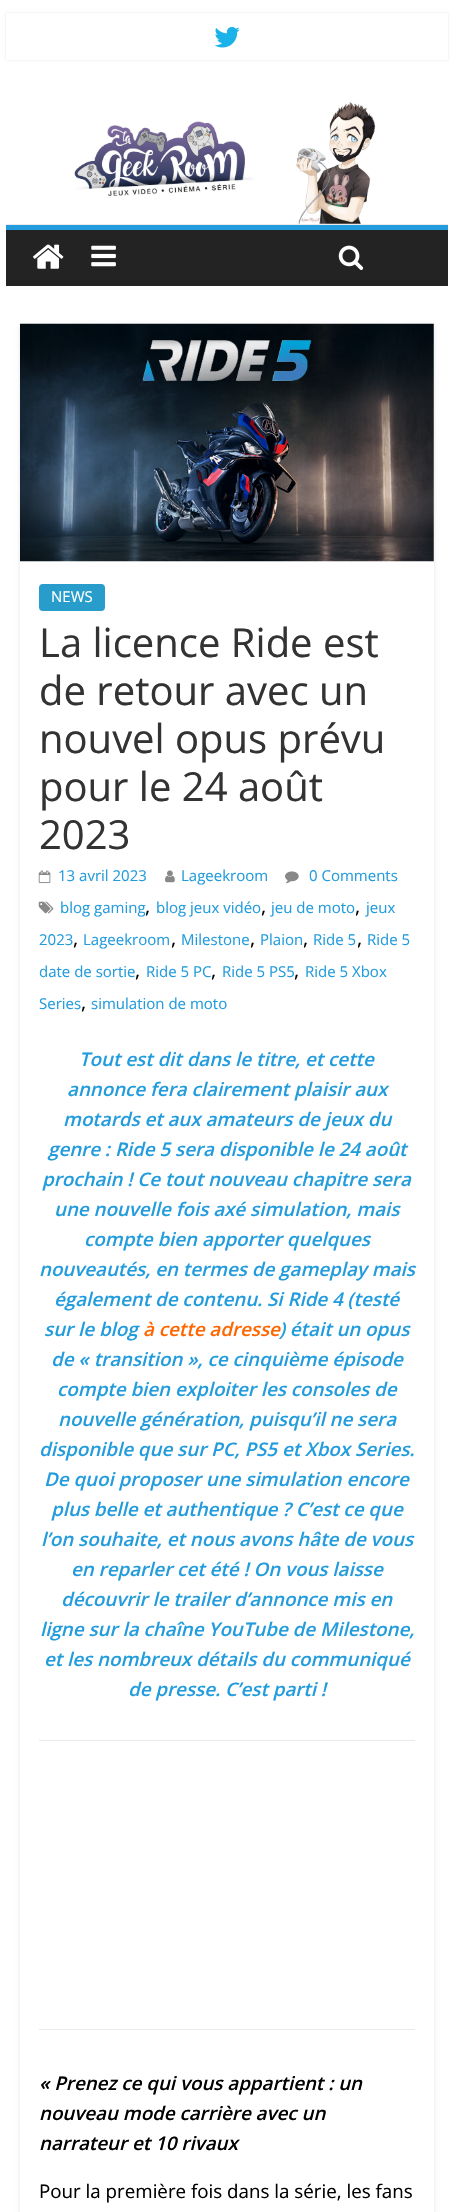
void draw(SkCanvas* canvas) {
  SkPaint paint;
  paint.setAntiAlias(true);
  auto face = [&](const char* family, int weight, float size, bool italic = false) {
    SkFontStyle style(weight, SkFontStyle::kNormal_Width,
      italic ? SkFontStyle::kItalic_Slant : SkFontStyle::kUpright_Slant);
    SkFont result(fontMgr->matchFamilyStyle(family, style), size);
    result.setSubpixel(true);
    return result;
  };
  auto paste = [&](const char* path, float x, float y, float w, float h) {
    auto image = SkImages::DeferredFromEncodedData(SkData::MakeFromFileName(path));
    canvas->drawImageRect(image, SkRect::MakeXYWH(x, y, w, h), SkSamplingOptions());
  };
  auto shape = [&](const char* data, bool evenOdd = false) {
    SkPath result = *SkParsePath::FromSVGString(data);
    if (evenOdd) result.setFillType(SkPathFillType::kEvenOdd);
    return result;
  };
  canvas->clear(0xffffffff);
  paint.setColor(0x1a000000);
  paint.setMaskFilter(SkMaskFilter::MakeBlur(kNormal_SkBlurStyle, 1));
  canvas->drawRect(SkRect::MakeXYWH(6, 13, 442, 47), paint);
  paint.setMaskFilter(nullptr);
  paint.setColor(0xffffffff);
  canvas->drawRect(SkRect::MakeXYWH(6, 13, 442, 47), paint);
  paste("img/1.png", 214, 27, 26, 21);
  paste("img/2.png", 74, 102, 302, 122);
  {
    const struct { float x, y, w, h; SkColor color; } items[] = {
      {6, 224, 442, 1, 0xffeaeaea},
      {6, 230, 442, 56, 0xff232323},
      {6, 225, 442, 5, 0xff229cdd},
    };
    for (auto [x, y, w, h, color] : items) {
      paint.setColor(color);
      canvas->drawRect(SkRect::MakeXYWH(x, y, w, h), paint);
    }
  }
  paste("img/3.png", 33, 244, 31, 25);
  paste("img/4.png", 91, 245, 25, 22);
  paste("img/5.png", 338, 245, 26, 25);
  canvas->save();
  canvas->clipPath(shape("M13 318H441V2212H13ZM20 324H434V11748H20Z", true), true);
  paint.setColor(0x1a000000);
  paint.setMaskFilter(SkMaskFilter::MakeBlur(kNormal_SkBlurStyle, 2));
  canvas->drawRect(SkRect::MakeXYWH(20, 325, 414, 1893), paint);
  paint.setMaskFilter(nullptr);
  canvas->restore();
  paste("img/6.png", 20, 323, 414, 239);
  paint.setColor(0xff289dcc);
  canvas->drawRoundRect(SkRect::MakeXYWH(39, 584, 66, 27), 4, 4, paint);
  paste("img/7.png", 38, 870, 13, 14);
  paste("img/8.png", 165, 870, 10, 13);
  paste("img/9.png", 285, 871, 14, 13);
  paste("img/10.png", 38, 901, 16, 13);
  paint.setColor(0xffeaeaea);
  canvas->drawRect(SkRect::MakeXYWH(39, 1740, 376, 1), paint);
  canvas->drawRect(SkRect::MakeXYWH(39, 2029, 376, 1), paint);
  auto f0 = face("Open Sans", 400, 15);
  paint.setColor(0xffffffff);
  canvas->drawString("NEWS", 51, 602, f0, paint);
  auto f1 = face("Open Sans", 400, 40);
  paint.setColor(0xff333333);
  {
    const struct { const char* s; float x, y; } items[] = {
      {"La licence Ride est", 39, 657},
      {"de retour avec un", 39, 705},
      {"nouvel opus prévu", 39, 753},
      {"pour le 24 août", 39, 801},
      {"2023", 39, 849},
    };
    for (auto [s, x, y] : items) {
      canvas->drawString(s, x, y, f1, paint);
    }
  }
  paint.setColor(0xff229cdd);
  {
    const struct { const char* s; float x, y; } items[] = {
      {"13 avril 2023", 58, 881},
      {"Lageekroom", 181, 881},
      {"0 Comments", 309, 881},
      {"blog gaming", 60, 913},
    };
    for (auto [s, x, y] : items) {
      canvas->drawString(s, x, y, f0, paint);
    }
  }
  auto f2 = face("Open Sans", 400, 20);
  paint.setColor(0xff000000);
  canvas->drawString(",", 145, 913, f2, paint);
  paint.setColor(0xff229cdd);
  canvas->drawString("blog jeux vidéo", 156, 913, f0, paint);
  paint.setColor(0xff000000);
  canvas->drawString(",", 261, 913, f2, paint);
  paint.setColor(0xff229cdd);
  canvas->drawString("jeu de moto", 271, 913, f0, paint);
  paint.setColor(0xff000000);
  canvas->drawString(",", 355, 913, f2, paint);
  paint.setColor(0xff229cdd);
  canvas->drawString("jeux", 366, 913, f0, paint);
  canvas->drawString("2023", 39, 945, f0, paint);
  paint.setColor(0xff000000);
  canvas->drawString(",", 73, 945, f2, paint);
  paint.setColor(0xff229cdd);
  canvas->drawString("Lageekroom", 83, 945, f0, paint);
  paint.setColor(0xff000000);
  canvas->drawString(",", 171, 945, f2, paint);
  paint.setColor(0xff229cdd);
  canvas->drawString("Milestone", 181, 945, f0, paint);
  paint.setColor(0xff000000);
  canvas->drawString(",", 250, 945, f2, paint);
  paint.setColor(0xff229cdd);
  canvas->drawString("Plaion", 260, 945, f0, paint);
  paint.setColor(0xff000000);
  canvas->drawString(",", 303, 945, f2, paint);
  paint.setColor(0xff229cdd);
  canvas->drawString("Ride 5", 313, 945, f0, paint);
  paint.setColor(0xff000000);
  canvas->drawString(",", 357, 945, f2, paint);
  paint.setColor(0xff229cdd);
  canvas->drawString("Ride 5", 367, 945, f0, paint);
  canvas->drawString("date de sortie", 39, 977, f0, paint);
  paint.setColor(0xff000000);
  canvas->drawString(",", 135, 977, f2, paint);
  paint.setColor(0xff229cdd);
  canvas->drawString("Ride 5 PC", 146, 977, f0, paint);
  paint.setColor(0xff000000);
  canvas->drawString(",", 211, 977, f2, paint);
  paint.setColor(0xff229cdd);
  canvas->drawString("Ride 5 PS5", 222, 977, f0, paint);
  paint.setColor(0xff000000);
  canvas->drawString(",", 294, 977, f2, paint);
  paint.setColor(0xff229cdd);
  canvas->drawString("Ride 5 Xbox", 305, 977, f0, paint);
  canvas->drawString("Series", 39, 1009, f0, paint);
  paint.setColor(0xff000000);
  canvas->drawString(",", 81, 1009, f2, paint);
  paint.setColor(0xff229cdd);
  canvas->drawString("simulation de moto", 91, 1009, f0, paint);
  auto f3 = face("Open Sans", 600, 18.75f, true);
  {
    const struct { const char* s; float x, y; } items[] = {
      {"Tout est dit dans le titre, et cette", 79, 1066},
      {"annonce fera clairement plaisir aux", 67, 1096},
      {"motards et aux amateurs de jeux du", 63, 1126},
      {"genre : Ride 5 sera disponible le 24 août", 48, 1156},
      {"prochain ! Ce tout nouveau chapitre sera", 42, 1186},
      {"une nouvelle fois axé simulation, mais", 54, 1216},
      {"compte bien apporter quelques", 84, 1246},
      {"nouveautés, en termes de gameplay mais", 39, 1276},
      {"également de contenu. Si Ride 4 (testé", 54, 1306},
      {"sur le blog", 44, 1336},
    };
    for (auto [s, x, y] : items) {
      canvas->drawString(s, x, y, f3, paint);
    }
  }
  paint.setColor(0xffff6600);
  canvas->drawString("à cette adresse", 143, 1336, f3, paint);
  paint.setColor(0xff229cdd);
  {
    const struct { const char* s; float x, y; } items[] = {
      {") était un opus", 279, 1336},
      {"de « transition », ce cinquième épisode", 51, 1366},
      {"compte bien exploiter les consoles de", 57, 1396},
      {"nouvelle génération, puisqu’il ne sera", 58, 1426},
      {"disponible que sur PC, PS5 et Xbox Series.", 39, 1456},
      {"De quoi proposer une simulation encore", 44, 1486},
      {"plus belle et authentique ? C’est ce que", 51, 1516},
      {"l’on souhaite, et nous avons hâte de vous", 41, 1546},
      {"en reparler cet été ! On vous laisse", 71, 1576},
      {"découvrir le trailer d’annonce mis en", 61, 1606},
      {"ligne sur la chaîne YouTube de Milestone,", 40, 1636},
      {"et les nombreux détails du communiqué", 44, 1666},
      {"de presse. C’est parti !", 128, 1696},
    };
    for (auto [s, x, y] : items) {
      canvas->drawString(s, x, y, f3, paint);
    }
  }
  paint.setColor(0xff000000);
  {
    const struct { const char* s; float x, y; } items[] = {
      {"« Prenez ce qui vous appartient : un", 39, 2090},
      {"nouveau mode carrière avec un", 39, 2120},
      {"narrateur et 10 rivaux", 39, 2150},
    };
    for (auto [s, x, y] : items) {
      canvas->drawString(s, x, y, f3, paint);
    }
  }
  auto f4 = face("Open Sans", 400, 18.75f);
  canvas->drawString("Pour la première fois dans la série, les fans", 39, 2198, f4, paint);
}
